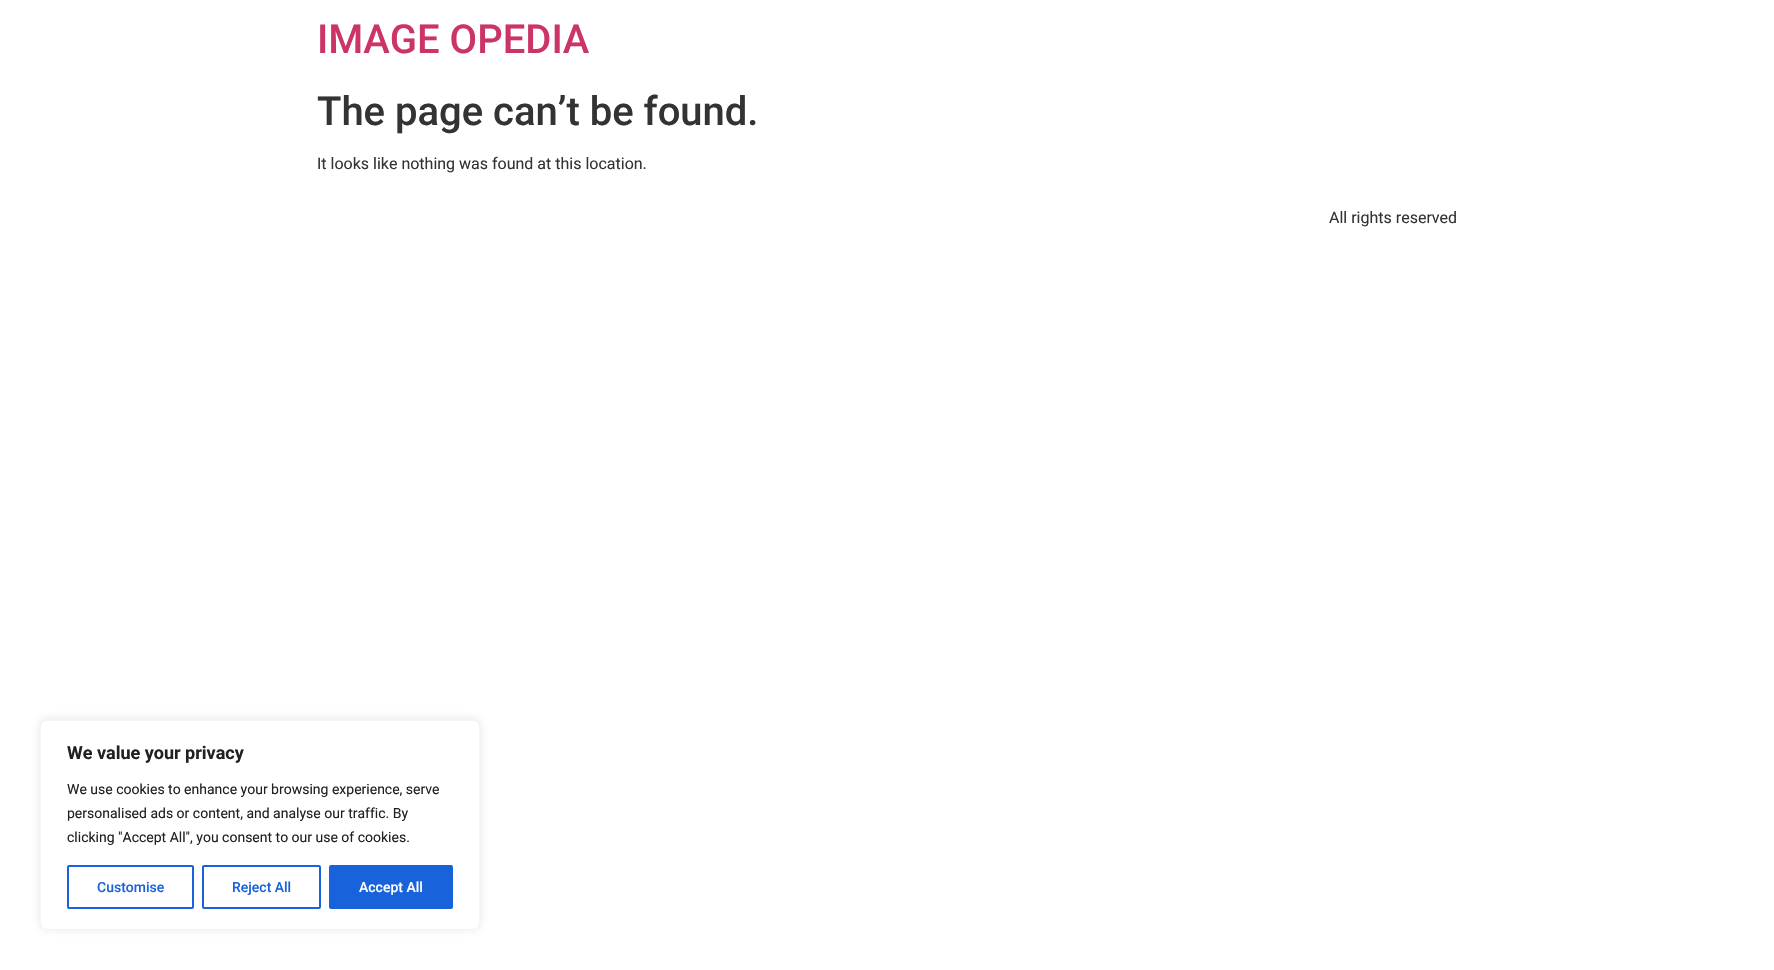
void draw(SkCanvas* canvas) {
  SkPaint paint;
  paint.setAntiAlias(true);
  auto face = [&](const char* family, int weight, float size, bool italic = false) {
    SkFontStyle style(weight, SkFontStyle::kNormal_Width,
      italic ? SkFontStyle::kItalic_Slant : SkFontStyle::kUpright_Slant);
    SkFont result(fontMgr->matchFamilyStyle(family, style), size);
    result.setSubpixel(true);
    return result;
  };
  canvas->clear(0xffffffff);
  paint.setColor(0x4dacabab);
  paint.setMaskFilter(SkMaskFilter::MakeBlur(kNormal_SkBlurStyle, 5));
  canvas->drawRoundRect(SkRect::MakeXYWH(40, 719, 440, 210), 6, 6, paint);
  paint.setMaskFilter(nullptr);
  paint.setColor(0xffffffff);
  canvas->drawRoundRect(SkRect::MakeXYWH(40.5f, 720.5f, 439, 209), 5.5f, 5.5f, paint);
  paint.setStroke(true);
  paint.setStrokeWidth(1);
  paint.setColor(0xfff4f4f4);
  canvas->drawRoundRect(SkRect::MakeXYWH(40.5f, 720.5f, 439, 209), 5.5f, 5.5f, paint);
  paint.setStrokeWidth(2);
  paint.setColor(0xff1863dc);
  canvas->drawRoundRect(SkRect::MakeXYWH(68, 866, 125, 42), 1, 1, paint);
  canvas->drawRoundRect(SkRect::MakeXYWH(203, 866, 117, 42), 1, 1, paint);
  paint.setStroke(false);
  canvas->drawRoundRect(SkRect::MakeXYWH(330, 866, 122, 42), 1, 1, paint);
  paint.setStroke(true);
  canvas->drawRoundRect(SkRect::MakeXYWH(330, 866, 122, 42), 1, 1, paint);
  auto f0 = face("Roboto", 500, 40);
  paint.setStroke(false);
  paint.setColor(0xffcc3366);
  canvas->drawString("IMAGE OPEDIA", 317, 53, f0, paint);
  paint.setColor(0xff333333);
  canvas->drawString("The page can’t be found.", 317, 125, f0, paint);
  auto f1 = face("Roboto", 400, 16);
  canvas->drawString("It looks like nothing was found at this location.", 317, 169, f1, paint);
  canvas->drawString("All rights reserved", 1329, 223, f1, paint);
  auto f2 = face("Roboto", 700, 18);
  paint.setColor(0xff212121);
  canvas->drawString("We value your privacy", 67, 759, f2, paint);
  auto f3 = face("Roboto", 400, 14);
  {
    const struct { const char* s; float x, y; } items[] = {
      {"We use cookies to enhance your browsing experience, serve", 67, 794},
      {"personalised ads or content, and analyse our traffic. By", 67, 818},
      {"clicking \"Accept All\", you consent to our use of cookies.", 67, 842},
    };
    for (auto [s, x, y] : items) {
      canvas->drawString(s, x, y, f3, paint);
    }
  }
  auto f4 = face("Roboto", 500, 14);
  paint.setColor(0xff1863dc);
  canvas->drawString("Customise", 97, 892, f4, paint);
  canvas->drawString("Reject All", 232, 892, f4, paint);
  paint.setColor(0xffffffff);
  canvas->drawString("Accept All", 359, 892, f4, paint);
}
